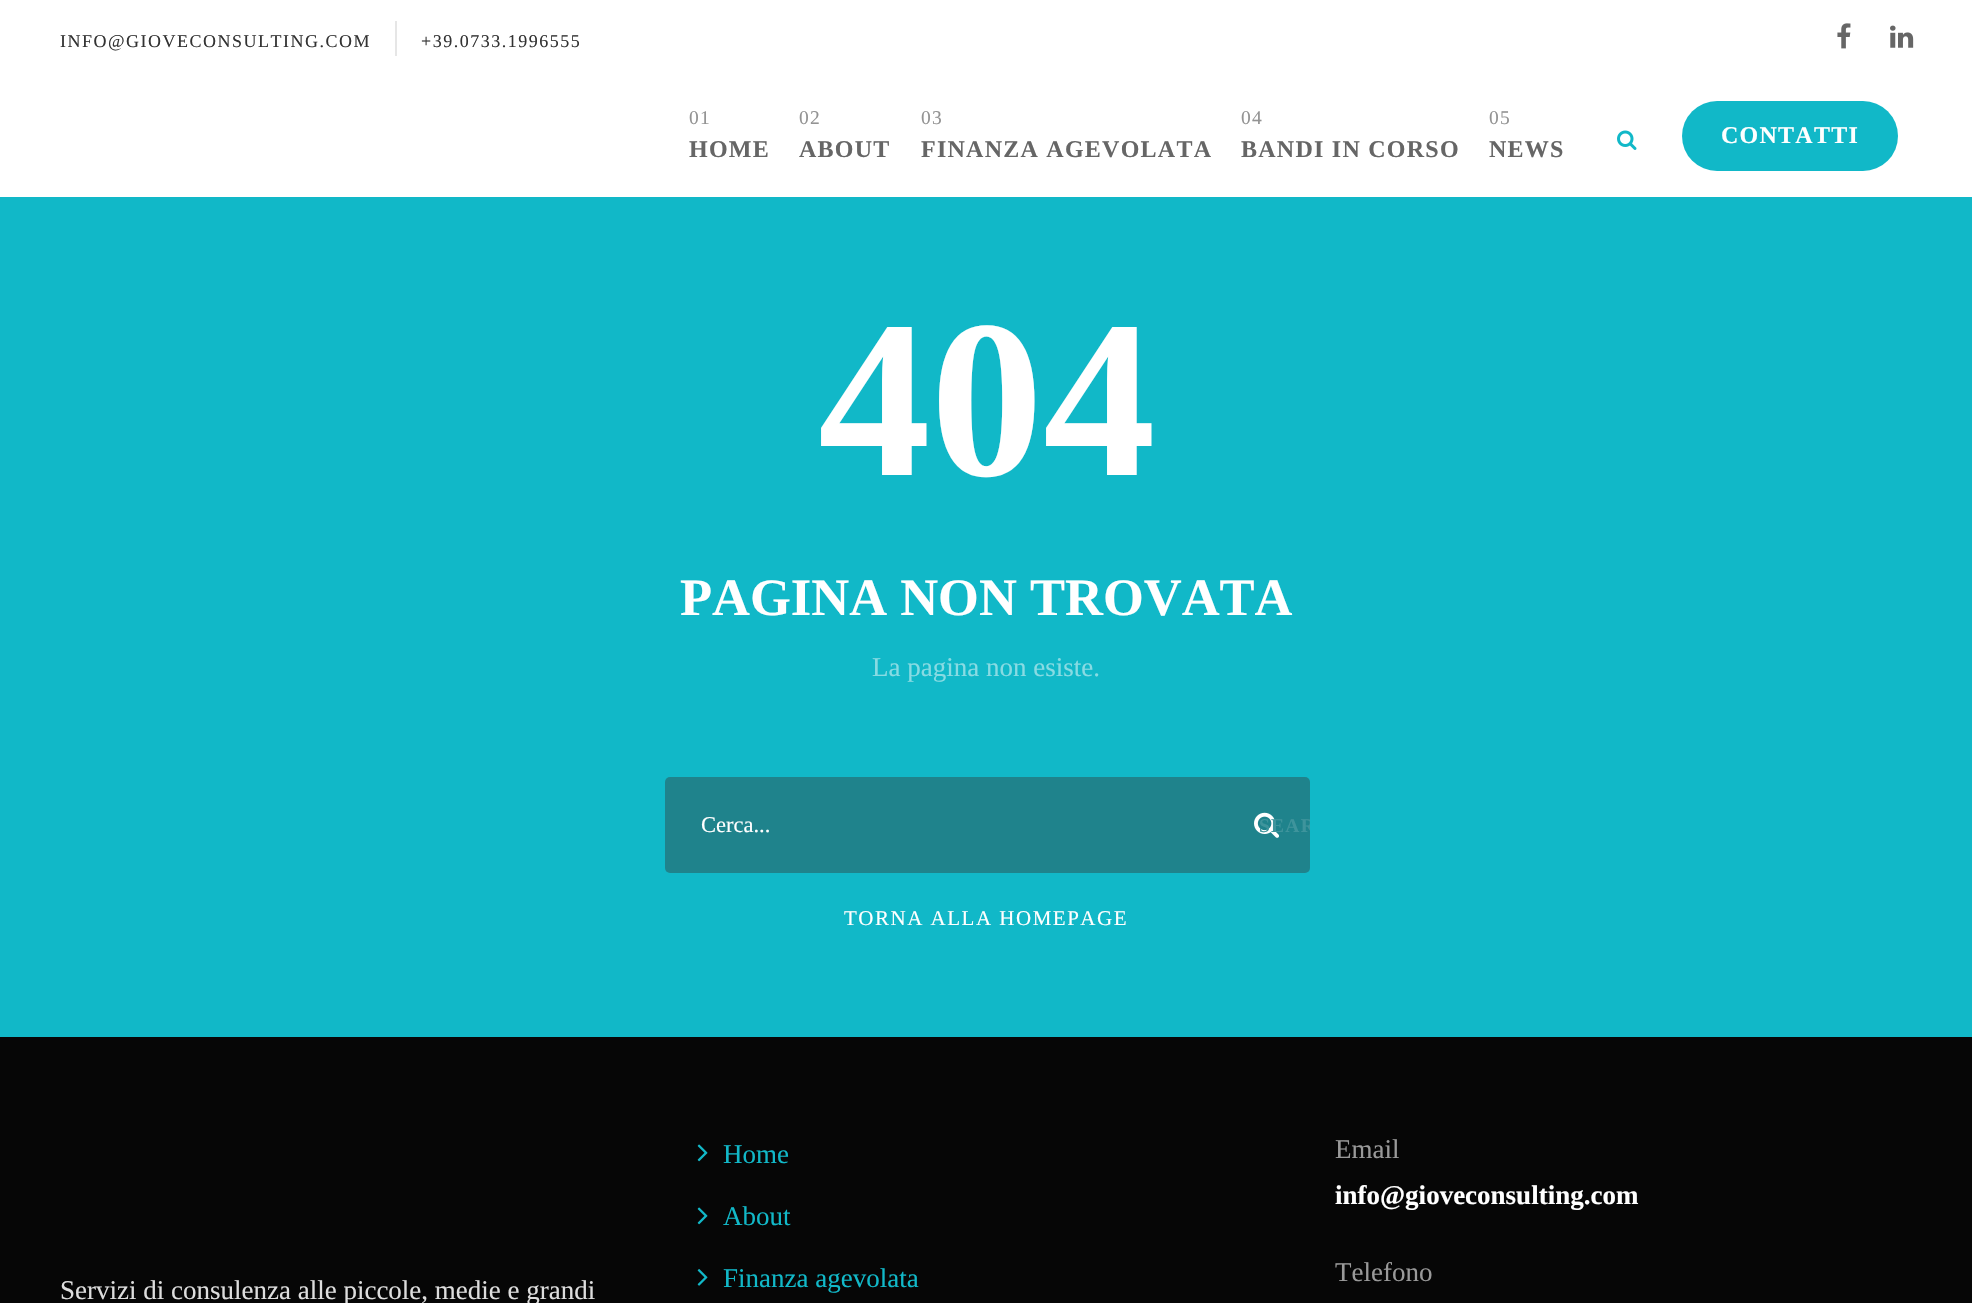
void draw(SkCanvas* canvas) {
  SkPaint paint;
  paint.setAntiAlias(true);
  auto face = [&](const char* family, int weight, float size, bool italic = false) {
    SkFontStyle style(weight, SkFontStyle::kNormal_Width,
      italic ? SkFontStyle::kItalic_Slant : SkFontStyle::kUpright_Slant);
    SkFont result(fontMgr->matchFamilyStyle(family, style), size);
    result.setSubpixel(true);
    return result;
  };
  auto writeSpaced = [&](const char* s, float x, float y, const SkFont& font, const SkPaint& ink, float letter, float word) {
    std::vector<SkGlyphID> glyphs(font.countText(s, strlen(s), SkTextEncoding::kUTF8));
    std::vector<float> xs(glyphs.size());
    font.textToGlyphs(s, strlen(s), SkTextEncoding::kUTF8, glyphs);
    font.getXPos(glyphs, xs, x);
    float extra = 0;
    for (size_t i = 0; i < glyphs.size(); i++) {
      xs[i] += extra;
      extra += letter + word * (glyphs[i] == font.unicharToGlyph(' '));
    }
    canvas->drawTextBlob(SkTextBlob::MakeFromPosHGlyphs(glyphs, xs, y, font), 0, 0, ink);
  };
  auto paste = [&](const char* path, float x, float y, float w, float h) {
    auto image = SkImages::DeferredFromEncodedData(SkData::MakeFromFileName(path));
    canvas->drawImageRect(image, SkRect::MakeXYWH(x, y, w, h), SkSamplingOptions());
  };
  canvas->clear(0xffffffff);
  paint.setColor(0xffe6e6e6);
  canvas->drawRect(SkRect::MakeXYWH(395, 21, 2, 35), paint);
  paste("img/1.png", 1837, 23, 14, 26);
  paste("img/2.png", 1890, 25, 24, 23);
  paste("img/3.png", 1617, 130, 20, 20);
  paint.setColor(0xff11b8c8);
  canvas->drawRoundRect(SkRect::MakeXYWH(1682, 101, 216, 70), 35, 35, paint);
  canvas->drawRect(SkRect::MakeXYWH(0, 197, 1972, 840), paint);
  paint.setColor(0xff1f838c);
  canvas->drawRoundRect(SkRect::MakeXYWH(665, 777, 645, 96), 5, 5, paint);
  paste("img/4.png", 1254, 812, 25, 26);
  paint.setColor(0xff060606);
  canvas->drawRect(SkRect::MakeXYWH(0, 1037, 1972, 266), paint);
  paste("img/5.png", 697, 1144, 11, 18);
  paste("img/5.png", 697, 1207, 11, 18);
  paste("img/6.png", 697, 1269, 11, 17);
  auto f0 = face("Liberation Serif", 400, 18);
  paint.setColor(0xff333333);
  writeSpaced("INFO@GIOVECONSULTING.COM", 60, 47, f0, paint, 1.5f, 0);
  writeSpaced("+39.0733.1996555", 421, 47, f0, paint, 1.5f, 0);
  auto f1 = face("Liberation Serif", 400, 19.5f);
  paint.setColor(0xff939393);
  writeSpaced("01", 689, 124, f1, paint, 1.25f, 0);
  auto f2 = face("Liberation Serif", 700, 24);
  paint.setColor(0xff666666);
  writeSpaced("HOME", 689, 157, f2, paint, 1.25f, 0);
  paint.setColor(0xff939393);
  writeSpaced("02", 799, 124, f1, paint, 1.25f, 0);
  paint.setColor(0xff666666);
  writeSpaced("ABOUT", 799, 157, f2, paint, 1.25f, 0);
  paint.setColor(0xff939393);
  writeSpaced("03", 921, 124, f1, paint, 1.25f, 0);
  paint.setColor(0xff666666);
  writeSpaced("FINANZA AGEVOLATA", 921, 157, f2, paint, 1.25f, 0);
  paint.setColor(0xff939393);
  writeSpaced("04", 1241, 124, f1, paint, 1.25f, 0);
  paint.setColor(0xff666666);
  writeSpaced("BANDI IN CORSO", 1241, 157, f2, paint, 1.25f, 0);
  paint.setColor(0xff939393);
  writeSpaced("05", 1489, 124, f1, paint, 1.25f, 0);
  paint.setColor(0xff666666);
  writeSpaced("NEWS", 1489, 157, f2, paint, 1.25f, 0);
  paint.setColor(0xffffffff);
  writeSpaced("CONTATTI", 1721, 143, f2, paint, 1.25f, 0);
  auto f3 = face("Liberation Serif", 700, 225);
  canvas->drawString("404", 818, 475, f3, paint);
  auto f4 = face("Liberation Serif", 700, 52.5f);
  canvas->drawString("PAGINA NON TROVATA", 680, 615, f4, paint);
  auto f5 = face("Liberation Serif", 400, 27);
  paint.setColor(0xff88dbe3);
  canvas->drawString("La pagina non esiste.", 872, 676, f5, paint);
  auto f6 = face("Liberation Serif", 400, 22.5f);
  paint.setColor(0xffffffff);
  canvas->drawString("Cerca...", 701, 832, f6, paint);
  canvas->save();
  canvas->clipRect(SkRect::MakeXYWH(1211, 777, 99, 96));
  auto f7 = face("Liberation Serif", 700, 19.5f);
  paint.setColor(0xff3e949c);
  writeSpaced("SEAR", 1259, 832, f7, paint, 1.25f, 0);
  canvas->restore();
  auto f8 = face("Liberation Serif", 400, 21);
  paint.setColor(0xffffffff);
  writeSpaced("TORNA ALLA HOMEPAGE", 844, 925, f8, paint, 1.5f, 0);
  paint.setColor(0xffdddddd);
  canvas->drawString("Servizi di consulenza alle piccole, medie e grandi", 60, 1299, f5, paint);
  paint.setColor(0xff11b8c8);
  {
    const struct { const char* s; float x, y; } items[] = {
      {"Home", 723, 1163},
      {"About", 723, 1225},
      {"Finanza agevolata", 723, 1287},
    };
    for (auto [s, x, y] : items) {
      canvas->drawString(s, x, y, f5, paint);
    }
  }
  paint.setColor(0xff999999);
  canvas->drawString("Email", 1335, 1158, f5, paint);
  auto f9 = face("Liberation Serif", 700, 27);
  paint.setColor(0xffffffff);
  canvas->drawString("info@gioveconsulting.com", 1335, 1204, f9, paint);
  paint.setColor(0xff999999);
  canvas->drawString("Telefono", 1335, 1281, f5, paint);
}
